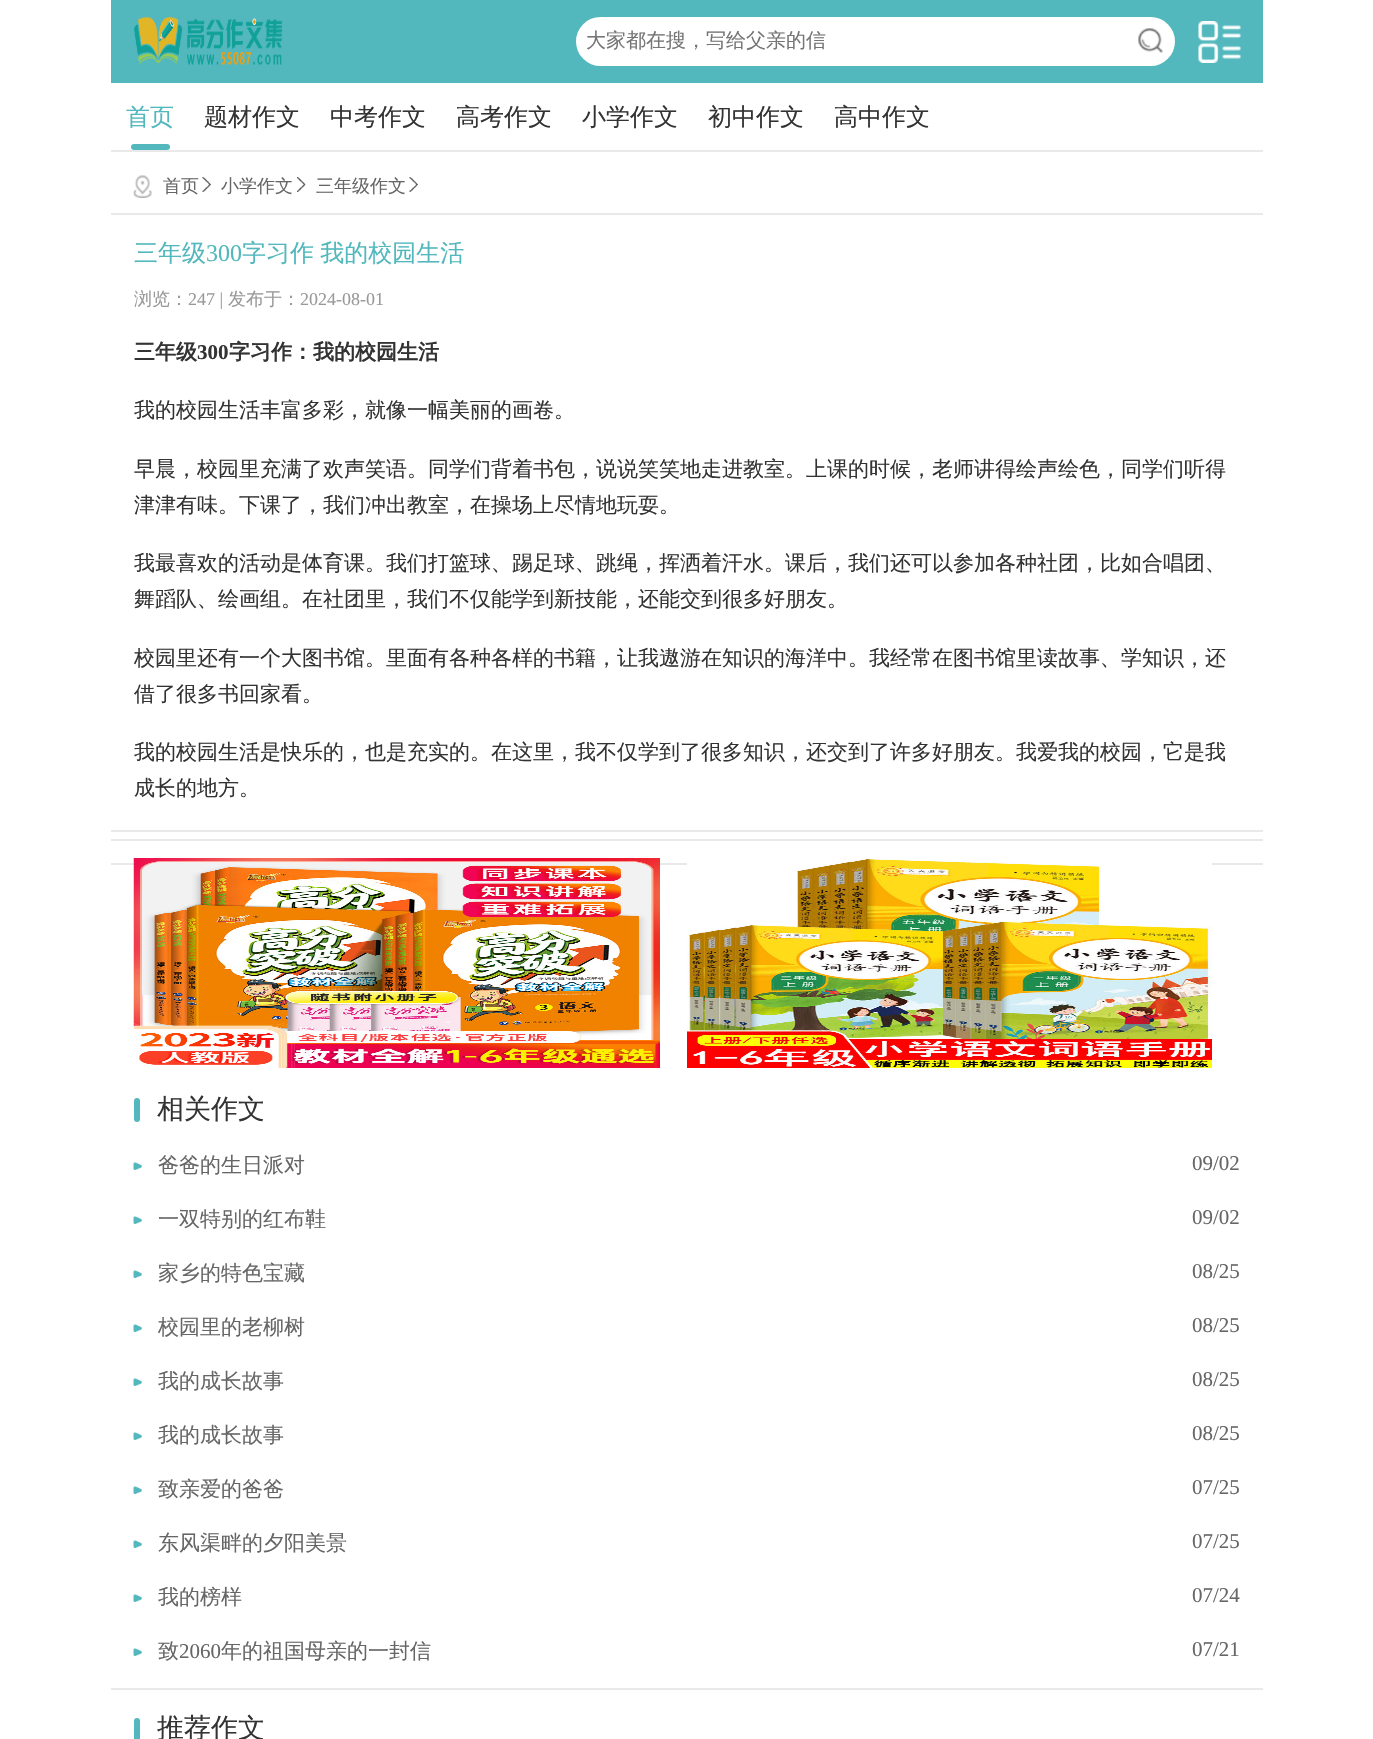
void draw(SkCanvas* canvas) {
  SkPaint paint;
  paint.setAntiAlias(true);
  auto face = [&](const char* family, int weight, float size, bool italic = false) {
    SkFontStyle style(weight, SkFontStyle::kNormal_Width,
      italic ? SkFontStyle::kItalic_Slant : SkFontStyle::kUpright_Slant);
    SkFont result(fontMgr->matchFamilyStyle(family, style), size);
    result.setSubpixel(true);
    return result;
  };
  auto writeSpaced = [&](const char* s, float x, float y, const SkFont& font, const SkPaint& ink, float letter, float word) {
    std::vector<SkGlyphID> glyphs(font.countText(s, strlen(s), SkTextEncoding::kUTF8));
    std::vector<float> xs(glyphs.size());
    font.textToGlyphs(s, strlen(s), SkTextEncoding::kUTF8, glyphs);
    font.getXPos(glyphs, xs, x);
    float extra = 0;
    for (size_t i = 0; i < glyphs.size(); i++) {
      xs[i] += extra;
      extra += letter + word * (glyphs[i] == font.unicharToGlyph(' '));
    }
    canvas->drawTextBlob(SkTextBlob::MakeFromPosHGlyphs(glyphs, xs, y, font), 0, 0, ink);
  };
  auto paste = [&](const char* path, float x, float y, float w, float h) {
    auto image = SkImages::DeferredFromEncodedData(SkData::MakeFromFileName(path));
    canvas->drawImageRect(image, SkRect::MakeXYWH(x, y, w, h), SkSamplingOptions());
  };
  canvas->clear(0xffffffff);
  paint.setColor(0xff52b8bd);
  canvas->drawRect(SkRect::MakeXYWH(111, 0, 1152, 83), paint);
  paste("img/1.png", 134, 16, 149, 49);
  paint.setColor(0xffffffff);
  canvas->drawRoundRect(SkRect::MakeXYWH(576, 17, 599, 49), 24.5f, 24.5f, paint);
  paste("img/2.png", 1138, 28, 25, 25);
  paste("img/3.png", 1198, 21, 43, 42);
  paint.setColor(0xffe9e9e9);
  canvas->drawRect(SkRect::MakeXYWH(111, 150, 1152, 2), paint);
  paint.setColor(0xff52b8bd);
  canvas->drawRoundRect(SkRect::MakeXYWH(131, 144, 39, 6), 3, 3, paint);
  paste("img/4.png", 133, 175, 19, 23);
  paste("img/5.png", 202, 177, 9, 15);
  paste("img/6.png", 297, 177, 9, 15);
  paste("img/7.png", 409, 177, 9, 15);
  {
    const struct { float x, y, w, h; SkColor color; } items[] = {
      {111, 213, 1152, 2, 0xffe9e9e9},
      {111, 830, 1152, 2, 0xffe9e9e9},
      {111, 839, 1152, 2, 0xffe9e9e9},
      {111, 863, 1152, 2, 0xffe9e9e9},
    };
    for (auto [x, y, w, h, color] : items) {
      paint.setColor(color);
      canvas->drawRect(SkRect::MakeXYWH(x, y, w, h), paint);
    }
  }
  paste("img/8.png", 133, 858, 527, 210);
  paste("img/9.png", 687, 858, 525, 210);
  paint.setColor(0xff52b8bd);
  canvas->drawRoundRect(SkRect::MakeXYWH(134, 1098, 6, 24), 3, 3, paint);
  paste("img/10.png", 133, 1162, 9, 8);
  paste("img/10.png", 133, 1216, 9, 8);
  paste("img/10.png", 133, 1270, 9, 8);
  paste("img/10.png", 133, 1324, 9, 8);
  paste("img/10.png", 133, 1378, 9, 8);
  paste("img/10.png", 133, 1432, 9, 8);
  paste("img/10.png", 133, 1486, 9, 8);
  paste("img/10.png", 133, 1540, 9, 8);
  paste("img/10.png", 133, 1594, 9, 8);
  paste("img/10.png", 133, 1648, 9, 8);
  paint.setColor(0xffe9e9e9);
  canvas->drawRect(SkRect::MakeXYWH(111, 1688, 1152, 2), paint);
  paint.setColor(0xff52b8bd);
  canvas->drawRoundRect(SkRect::MakeXYWH(134, 1718, 6, 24), 3, 3, paint);
  auto f0 = face("WenQuanYi Zen Hei", 500, 20);
  paint.setColor(0xff757575);
  canvas->drawString("大家都在搜，写给父亲的信", 586, 47, f0, paint);
  auto f1 = face("WenQuanYi Zen Hei", 500, 24);
  paint.setColor(0xff52b8bd);
  canvas->drawString("首页", 126, 125, f1, paint);
  paint.setColor(0xff333333);
  {
    const struct { const char* s; float x, y; } items[] = {
      {"题材作文", 204, 125},
      {"中考作文", 330, 125},
      {"高考作文", 456, 125},
      {"小学作文", 582, 125},
      {"初中作文", 708, 125},
      {"高中作文", 834, 125},
    };
    for (auto [s, x, y] : items) {
      canvas->drawString(s, x, y, f1, paint);
    }
  }
  auto f2 = face("WenQuanYi Zen Hei", 500, 18);
  paint.setColor(0xff666666);
  {
    const struct { const char* s; float x, y; } items[] = {
      {"首页", 163, 192},
      {"小学作文", 221, 192},
      {"三年级作文", 316, 192},
    };
    for (auto [s, x, y] : items) {
      canvas->drawString(s, x, y, f2, paint);
    }
  }
  paint.setColor(0xff52b8bd);
  canvas->drawString("三年级", 134, 261, f1, paint);
  auto f3 = face("Liberation Serif", 400, 24);
  canvas->drawString("300", 206, 261, f3, paint);
  writeSpaced("字习作 我的校园生活", 242, 261, f1, paint, 0, -1);
  paint.setColor(0xff999999);
  canvas->drawString("浏览：", 134, 305, f2, paint);
  auto f4 = face("Liberation Serif", 400, 18);
  canvas->drawString("247 |", 188, 305, f4, paint);
  canvas->drawString("发布于：", 228, 305, f2, paint);
  canvas->drawString("2024-08-01", 300, 305, f4, paint);
  auto f5 = face("WenQuanYi Zen Hei", 700, 21);
  paint.setColor(0xff333333);
  canvas->drawString("三年级", 134, 359, f5, paint);
  auto f6 = face("Liberation Serif", 700, 21);
  canvas->drawString("300", 197, 359, f6, paint);
  canvas->drawString("字习作：我的校园生活", 229, 359, f5, paint);
  auto f7 = face("WenQuanYi Zen Hei", 500, 21);
  {
    const struct { const char* s; float x, y; } items[] = {
      {"我的校园生活丰富多彩，就像一幅美丽的画卷。", 134, 417},
      {"早晨，校园里充满了欢声笑语。同学们背着书包，说说笑笑地走进教室。上课的时候，老师讲得绘声绘色，同学们听得", 134, 476},
      {"津津有味。下课了，我们冲出教室，在操场上尽情地玩耍。", 134, 512},
      {"我最喜欢的活动是体育课。我们打篮球、踢足球、跳绳，挥洒着汗水。课后，我们还可以参加各种社团，比如合唱团、", 134, 570},
      {"舞蹈队、绘画组。在社团里，我们不仅能学到新技能，还能交到很多好朋友。", 134, 606},
      {"校园里还有一个大图书馆。里面有各种各样的书籍，让我遨游在知识的海洋中。我经常在图书馆里读故事、学知识，还", 134, 665},
      {"借了很多书回家看。", 134, 701},
      {"我的校园生活是快乐的，也是充实的。在这里，我不仅学到了很多知识，还交到了许多好朋友。我爱我的校园，它是我", 134, 759},
      {"成长的地方。", 134, 795},
    };
    for (auto [s, x, y] : items) {
      canvas->drawString(s, x, y, f7, paint);
    }
  }
  auto f8 = face("WenQuanYi Zen Hei", 500, 27);
  canvas->drawString("相关作文", 157, 1118, f8, paint);
  paint.setColor(0xff666666);
  canvas->drawString("爸爸的生日派对", 158, 1172, f7, paint);
  auto f9 = face("Liberation Serif", 400, 21);
  canvas->drawString("09/02", 1192, 1170, f9, paint);
  canvas->drawString("一双特别的红布鞋", 158, 1226, f7, paint);
  canvas->drawString("09/02", 1192, 1224, f9, paint);
  canvas->drawString("家乡的特色宝藏", 158, 1280, f7, paint);
  canvas->drawString("08/25", 1192, 1278, f9, paint);
  canvas->drawString("校园里的老柳树", 158, 1334, f7, paint);
  canvas->drawString("08/25", 1192, 1332, f9, paint);
  canvas->drawString("我的成长故事", 158, 1388, f7, paint);
  canvas->drawString("08/25", 1192, 1386, f9, paint);
  canvas->drawString("我的成长故事", 158, 1442, f7, paint);
  canvas->drawString("08/25", 1192, 1440, f9, paint);
  canvas->drawString("致亲爱的爸爸", 158, 1496, f7, paint);
  canvas->drawString("07/25", 1192, 1494, f9, paint);
  canvas->drawString("东风渠畔的夕阳美景", 158, 1550, f7, paint);
  canvas->drawString("07/25", 1192, 1548, f9, paint);
  canvas->drawString("我的榜样", 158, 1604, f7, paint);
  canvas->drawString("07/24", 1192, 1602, f9, paint);
  canvas->drawString("致", 158, 1658, f7, paint);
  canvas->drawString("2060", 179, 1658, f9, paint);
  canvas->drawString("年的祖国母亲的一封信", 221, 1658, f7, paint);
  canvas->drawString("07/21", 1192, 1656, f9, paint);
  paint.setColor(0xff333333);
  canvas->drawString("推荐作文", 157, 1737, f8, paint);
}
